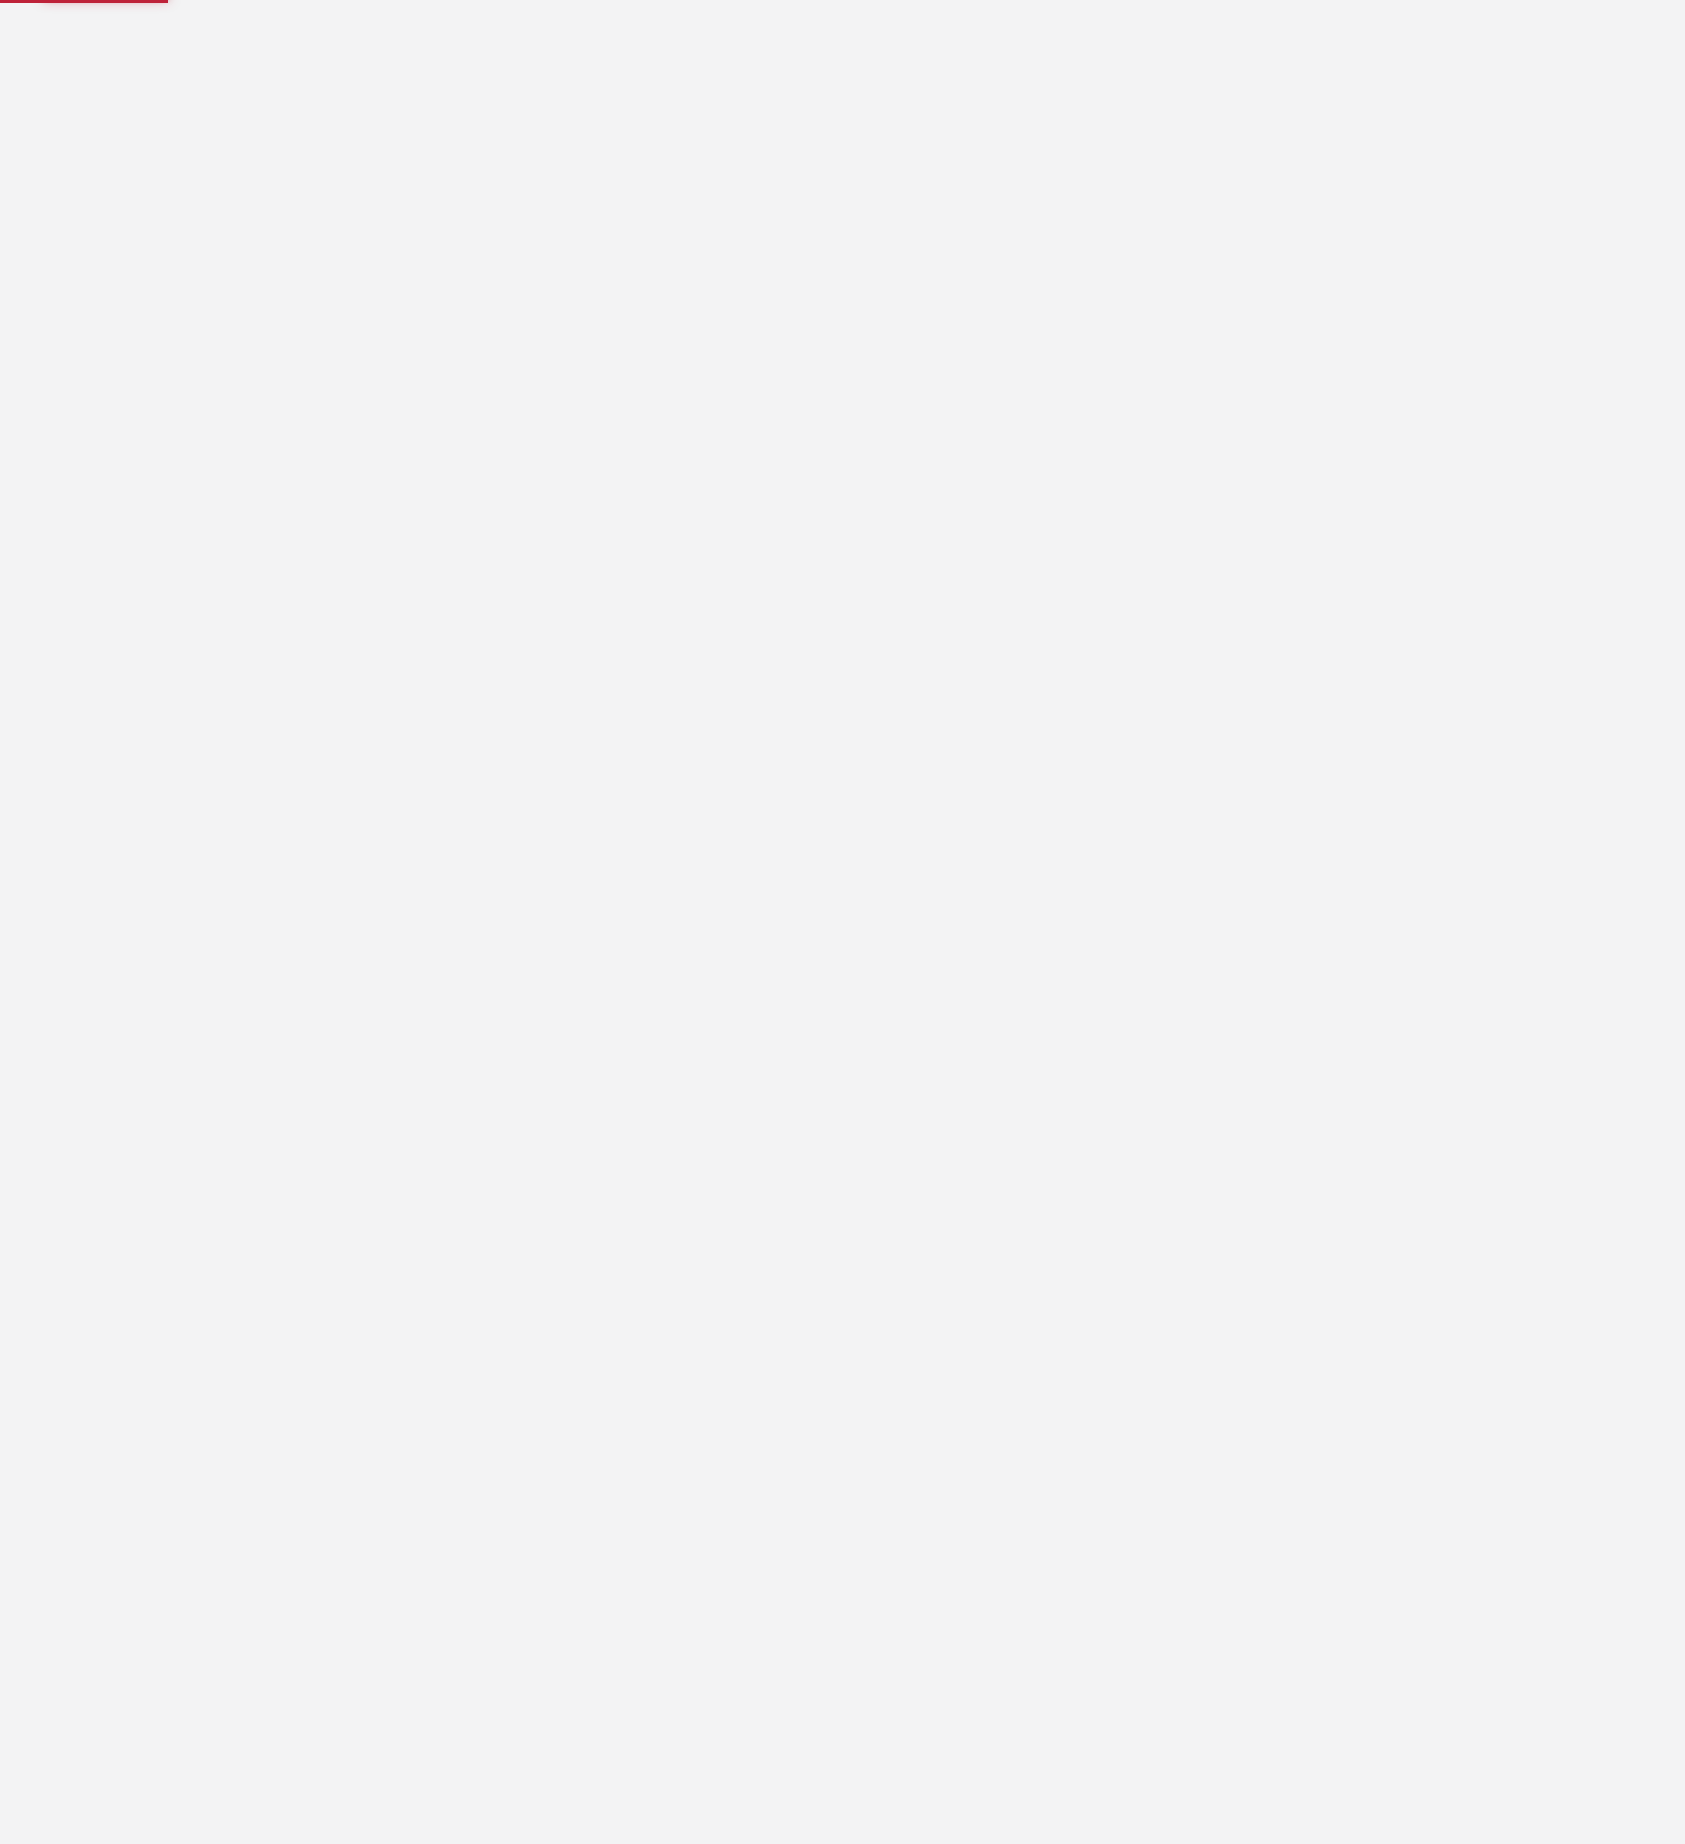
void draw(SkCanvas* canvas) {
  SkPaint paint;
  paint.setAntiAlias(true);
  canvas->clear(0xfff3f3f4);
  paint.setColor(0xffbe2239);
  canvas->drawRect(SkRect::MakeXYWH(0, 0, 168, 3), paint);
  paint.setMaskFilter(SkMaskFilter::MakeBlur(kNormal_SkBlurStyle, 3));
  canvas->drawRect(SkRect::MakeXYWH(43, -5, 125, 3), paint);
  paint.setMaskFilter(nullptr);
  paint.setMaskFilter(SkMaskFilter::MakeBlur(kNormal_SkBlurStyle, 6.5f));
  canvas->drawRect(SkRect::MakeXYWH(43, -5, 125, 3), paint);
  paint.setMaskFilter(nullptr);
}
